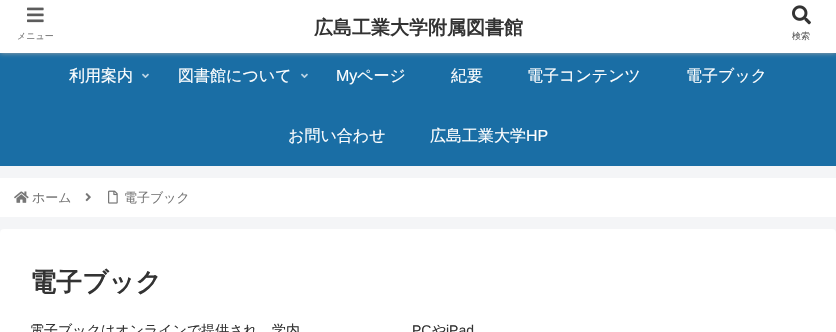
void draw(SkCanvas* canvas) {
  SkPaint paint;
  paint.setAntiAlias(true);
  auto face = [&](const char* family, int weight, float size, bool italic = false) {
    SkFontStyle style(weight, SkFontStyle::kNormal_Width,
      italic ? SkFontStyle::kItalic_Slant : SkFontStyle::kUpright_Slant);
    SkFont result(fontMgr->matchFamilyStyle(family, style), size);
    result.setSubpixel(true);
    return result;
  };
  auto paste = [&](const char* path, float x, float y, float w, float h) {
    auto image = SkImages::DeferredFromEncodedData(SkData::MakeFromFileName(path));
    canvas->drawImageRect(image, SkRect::MakeXYWH(x, y, w, h), SkSamplingOptions());
  };
  canvas->clear(0xfff4f5f7);
  paint.setColor(0xff1a6ea5);
  canvas->drawRect(SkRect::MakeXYWH(0, 53, 836, 113), paint);
  paint.setColor(0xffa9a9a9);
  paint.setMaskFilter(SkMaskFilter::MakeBlur(kNormal_SkBlurStyle, 2.5f));
  canvas->drawRect(SkRect::MakeXYWH(0, 0, 836, 53), paint);
  paint.setMaskFilter(nullptr);
  paint.setColor(0xffffffff);
  canvas->drawRect(SkRect::MakeXYWH(0, 0, 836, 53), paint);
  paste("img/1.png", 27, 7, 17, 16);
  paste("img/2.png", 792, 5, 19, 20);
  paste("img/3.png", 142, 73, 7, 5);
  paste("img/3.png", 301, 73, 7, 5);
  canvas->drawRect(SkRect::MakeXYWH(0, 178, 836, 39), paint);
  paste("img/4.png", 14, 191, 15, 12);
  paste("img/5.png", 85, 193, 6, 9);
  paste("img/6.png", 108, 190, 10, 14);
  canvas->drawRoundRect(SkRect::MakeXYWH(0, 229, 836, 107), 4, 4, paint);
  auto f0 = face("WenQuanYi Zen Hei", 500, 9);
  paint.setColor(0xff777777);
  canvas->drawString("メニュー", 17, 39, f0, paint);
  auto f1 = face("WenQuanYi Zen Hei", 700, 19);
  paint.setColor(0xff333333);
  canvas->drawString("広島工業大学附属図書館", 314, 34, f1, paint);
  paint.setColor(0xff5c5c5c);
  canvas->drawString("検索", 792, 39, f0, paint);
  auto f2 = face("WenQuanYi Zen Hei", 500, 16);
  paint.setColor(0xffffffff);
  canvas->drawString("利用案内", 69, 81, f2, paint);
  canvas->drawString("図書館について", 178, 81, f2, paint);
  auto f3 = face("Liberation Sans", 400, 16);
  canvas->drawString("My", 336, 81, f3, paint);
  {
    const struct { const char* s; float x, y; } items[] = {
      {"ページ", 357, 81},
      {"紀要", 451, 81},
      {"電子コンテンツ", 527, 81},
      {"電子ブック", 686, 81},
      {"お問い合わせ", 288, 141},
      {"広島工業大学", 430, 141},
    };
    for (auto [s, x, y] : items) {
      canvas->drawString(s, x, y, f2, paint);
    }
  }
  canvas->drawString("HP", 526, 141, f3, paint);
  auto f4 = face("WenQuanYi Zen Hei", 500, 13);
  paint.setColor(0xff777777);
  canvas->drawString("ホーム", 32, 202, f4, paint);
  canvas->drawString("電子ブック", 124, 202, f4, paint);
  auto f5 = face("WenQuanYi Zen Hei", 700, 26);
  paint.setColor(0xff333333);
  canvas->drawString("電子ブック", 30, 291, f5, paint);
  auto f6 = face("WenQuanYi Zen Hei", 500, 14);
  canvas->drawString("電子ブックはオンラインで提供され、学内", 30, 335, f6, paint);
  auto f7 = face("Liberation Sans", 400, 14);
  canvas->drawString("PC", 412, 335, f7, paint);
  canvas->drawString("や", 432, 335, f6, paint);
  canvas->drawString("iPad", 446, 335, f7, paint);
}
